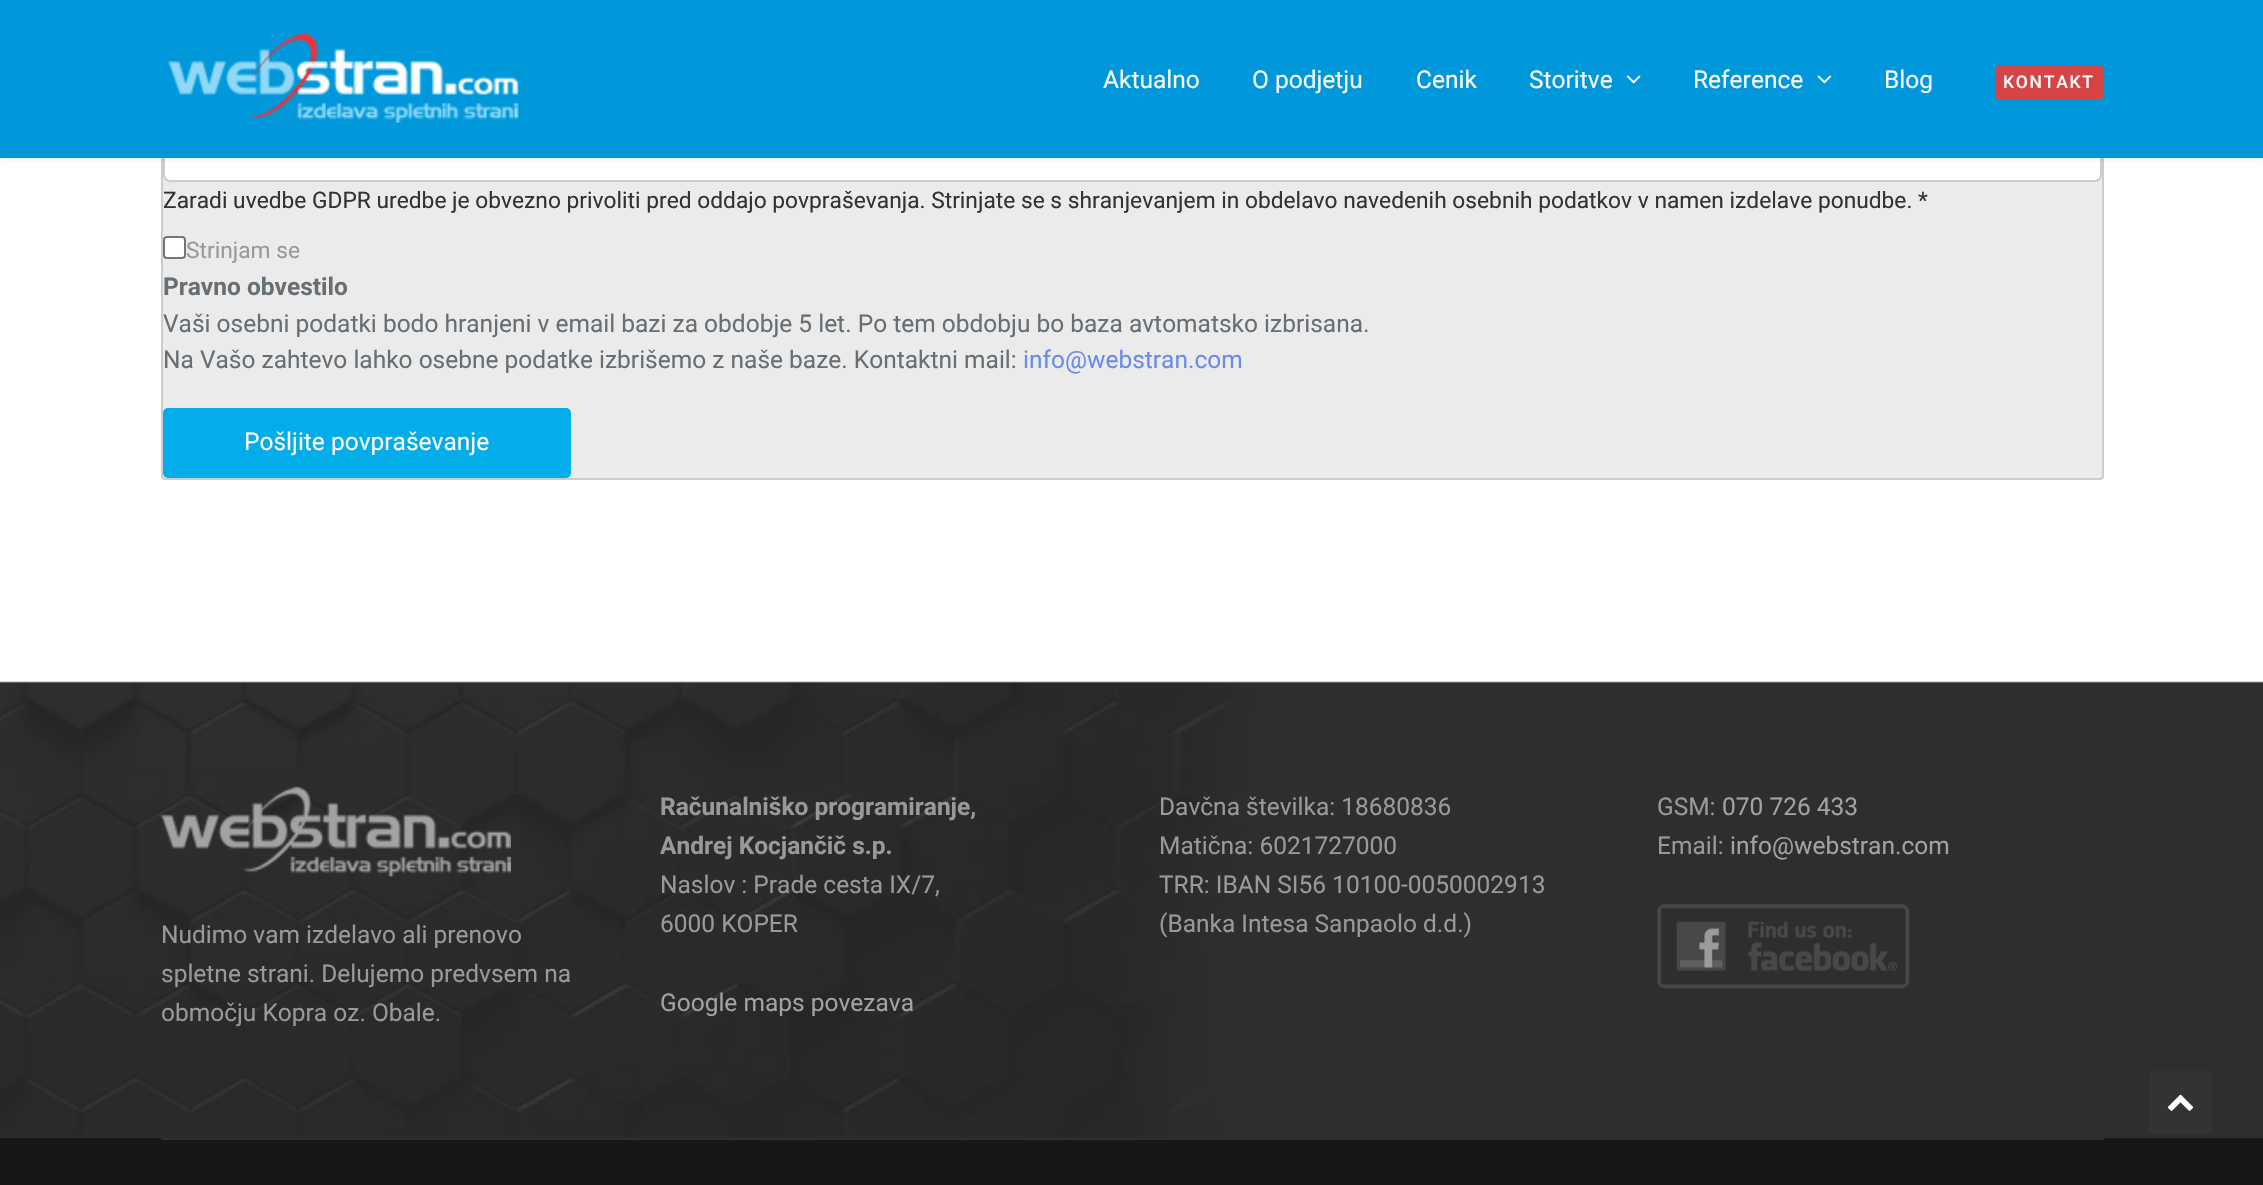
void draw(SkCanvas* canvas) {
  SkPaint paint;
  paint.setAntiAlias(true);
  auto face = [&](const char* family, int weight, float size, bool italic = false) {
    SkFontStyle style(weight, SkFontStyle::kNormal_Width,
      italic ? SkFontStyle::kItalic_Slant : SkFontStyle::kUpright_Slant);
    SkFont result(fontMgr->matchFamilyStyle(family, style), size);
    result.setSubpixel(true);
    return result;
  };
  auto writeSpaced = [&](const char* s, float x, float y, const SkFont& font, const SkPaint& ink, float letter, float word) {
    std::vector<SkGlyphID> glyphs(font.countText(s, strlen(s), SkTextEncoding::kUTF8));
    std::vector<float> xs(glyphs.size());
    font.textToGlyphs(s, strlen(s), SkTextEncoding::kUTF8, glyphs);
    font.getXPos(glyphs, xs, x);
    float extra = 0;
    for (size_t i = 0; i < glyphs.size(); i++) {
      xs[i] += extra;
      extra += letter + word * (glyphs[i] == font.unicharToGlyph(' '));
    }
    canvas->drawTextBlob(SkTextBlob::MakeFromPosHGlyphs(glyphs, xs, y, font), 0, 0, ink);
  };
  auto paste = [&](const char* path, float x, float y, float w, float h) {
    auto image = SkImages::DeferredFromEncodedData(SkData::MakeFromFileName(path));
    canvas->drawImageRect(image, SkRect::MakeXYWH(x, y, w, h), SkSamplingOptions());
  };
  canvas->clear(0xffffffff);
  paint.setColor(0xffebebeb);
  canvas->drawRoundRect(SkRect::MakeXYWH(162, -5, 1941, 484), 3, 3, paint);
  paint.setStroke(true);
  paint.setStrokeWidth(2);
  paint.setColor(0xffcccccc);
  canvas->drawRoundRect(SkRect::MakeXYWH(162, -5, 1941, 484), 3, 3, paint);
  paint.setStroke(false);
  paint.setColor(0xffffffff);
  canvas->drawRoundRect(SkRect::MakeXYWH(164, 108, 1937, 73), 6, 6, paint);
  paint.setStroke(true);
  paint.setColor(0xffcccccc);
  canvas->drawRoundRect(SkRect::MakeXYWH(164, 108, 1937, 73), 6, 6, paint);
  paint.setStroke(false);
  paint.setColor(0x1a000000);
  paint.setMaskFilter(SkMaskFilter::MakeBlur(kNormal_SkBlurStyle, 3.5f));
  canvas->drawRect(SkRect::MakeXYWH(0, 0, 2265, 158), paint);
  paint.setMaskFilter(nullptr);
  paint.setColor(0xff0098da);
  canvas->drawRect(SkRect::MakeXYWH(0, 0, 2263, 158), paint);
  paste("img/1.png", 167, 32, 352, 91);
  paste("img/2.png", 1626, 75, 15, 9);
  paste("img/3.png", 1817, 75, 15, 9);
  paint.setColor(0xffd64545);
  canvas->drawRoundRect(SkRect::MakeXYWH(1995, 65, 109, 35), 5, 5, paint);
  paint.setColor(0xffffffff);
  canvas->drawRoundRect(SkRect::MakeXYWH(164, 237, 21, 21), 3, 3, paint);
  paint.setStroke(true);
  paint.setColor(0xff767676);
  canvas->drawRoundRect(SkRect::MakeXYWH(164, 237, 21, 21), 3, 3, paint);
  paint.setStroke(false);
  paint.setColor(0xff02adea);
  canvas->drawRoundRect(SkRect::MakeXYWH(163, 408, 408, 70), 5, 5, paint);
  paint.setColor(0xff2e2e2e);
  canvas->drawRect(SkRect::MakeXYWH(0, 683, 2263, 455), paint);
  paste("img/4.png", 0, 681, 2263, 457);
  paste("img/5.png", 1657, 904, 253, 85);
  paste("img/6.png", 161, 786, 350, 91);
  paint.setColor(0xff171717);
  canvas->drawRect(SkRect::MakeXYWH(0, 1138, 2263, 47), paint);
  paint.setColor(0xff2e2e2e);
  canvas->drawRect(SkRect::MakeXYWH(161, 1138, 1943, 2), paint);
  paint.setColor(0xff333333);
  canvas->drawRoundRect(SkRect::MakeXYWH(2149, 1071, 63, 63), 5, 5, paint);
  paste("img/7.png", 2167, 1094, 27, 17);
  auto f0 = face("Roboto", 400, 24.5f);
  paint.setColor(0xfffafafa);
  {
    const struct { const char* s; float x, y; } items[] = {
      {"Aktualno", 1103, 88},
      {"O podjetju", 1252, 88},
      {"Cenik", 1416, 88},
      {"Storitve", 1529, 88},
      {"Reference", 1693, 88},
      {"Blog", 1884, 88},
    };
    for (auto [s, x, y] : items) {
      canvas->drawString(s, x, y, f0, paint);
    }
  }
  auto f1 = face("Roboto", 500, 17.5f);
  writeSpaced("KONTAKT", 2003, 88, f1, paint, 1.75f, 0);
  auto f2 = face("Roboto", 400, 22.75f);
  paint.setColor(0xff333333);
  canvas->drawString("Zaradi uvedbe GDPR uredbe je obvezno privoliti pred oddajo povpraševanja. Strinjate se s shranjevanjem in obdelavo navedenih osebnih podatkov v namen izdelave ponudbe. *", 163, 208, f2, paint);
  paint.setColor(0xff999999);
  canvas->drawString("Strinjam se", 186, 258, f2, paint);
  auto f3 = face("Roboto", 700, 24.5f);
  paint.setColor(0xff686f74);
  canvas->drawString("Pravno obvestilo", 163, 295, f3, paint);
  canvas->drawString("Vaši osebni podatki bodo hranjeni v email bazi za obdobje 5 let. Po tem obdobju bo baza avtomatsko izbrisana.", 163, 332, f0, paint);
  canvas->drawString("Na Vašo zahtevo lahko osebne podatke izbrišemo z naše baze. Kontaktni mail:", 163, 368, f0, paint);
  paint.setColor(0xff6a8ce8);
  canvas->drawString("info@webstran.com", 1023, 368, f0, paint);
  paint.setColor(0xfffafafa);
  canvas->drawString("Pošljite povpraševanje", 244, 450, f0, paint);
  paint.setColor(0xff999999);
  canvas->drawString("Računalniško programiranje,", 660, 815, f3, paint);
  canvas->drawString("Andrej Kocjančič s.p.", 660, 854, f3, paint);
  canvas->drawString("Naslov : Prade cesta IX/7,", 660, 893, f0, paint);
  canvas->drawString("6000 KOPER", 660, 932, f0, paint);
  paint.setColor(0xffa2a2a2);
  canvas->drawString("Google maps povezava", 660, 1011, f0, paint);
  paint.setColor(0xff999999);
  {
    const struct { const char* s; float x, y; } items[] = {
      {"Davčna številka: 18680836", 1159, 815},
      {"Matična: 6021727000", 1159, 854},
      {"TRR: IBAN SI56 10100-0050002913", 1159, 893},
      {"(Banka Intesa Sanpaolo d.d.)", 1159, 932},
      {"GSM:", 1657, 815},
    };
    for (auto [s, x, y] : items) {
      canvas->drawString(s, x, y, f0, paint);
    }
  }
  paint.setColor(0xffa2a2a2);
  canvas->drawString("070 726 433", 1722, 815, f0, paint);
  paint.setColor(0xff999999);
  canvas->drawString("Email:", 1657, 854, f0, paint);
  paint.setColor(0xffa2a2a2);
  canvas->drawString("info@webstran.com", 1730, 854, f0, paint);
  paint.setColor(0xff999999);
  {
    const struct { const char* s; float x, y; } items[] = {
      {"Nudimo vam izdelavo ali prenovo", 161, 943},
      {"spletne strani. Delujemo predvsem na", 161, 982},
      {"območju Kopra oz. Obale.", 161, 1021},
    };
    for (auto [s, x, y] : items) {
      canvas->drawString(s, x, y, f0, paint);
    }
  }
}
